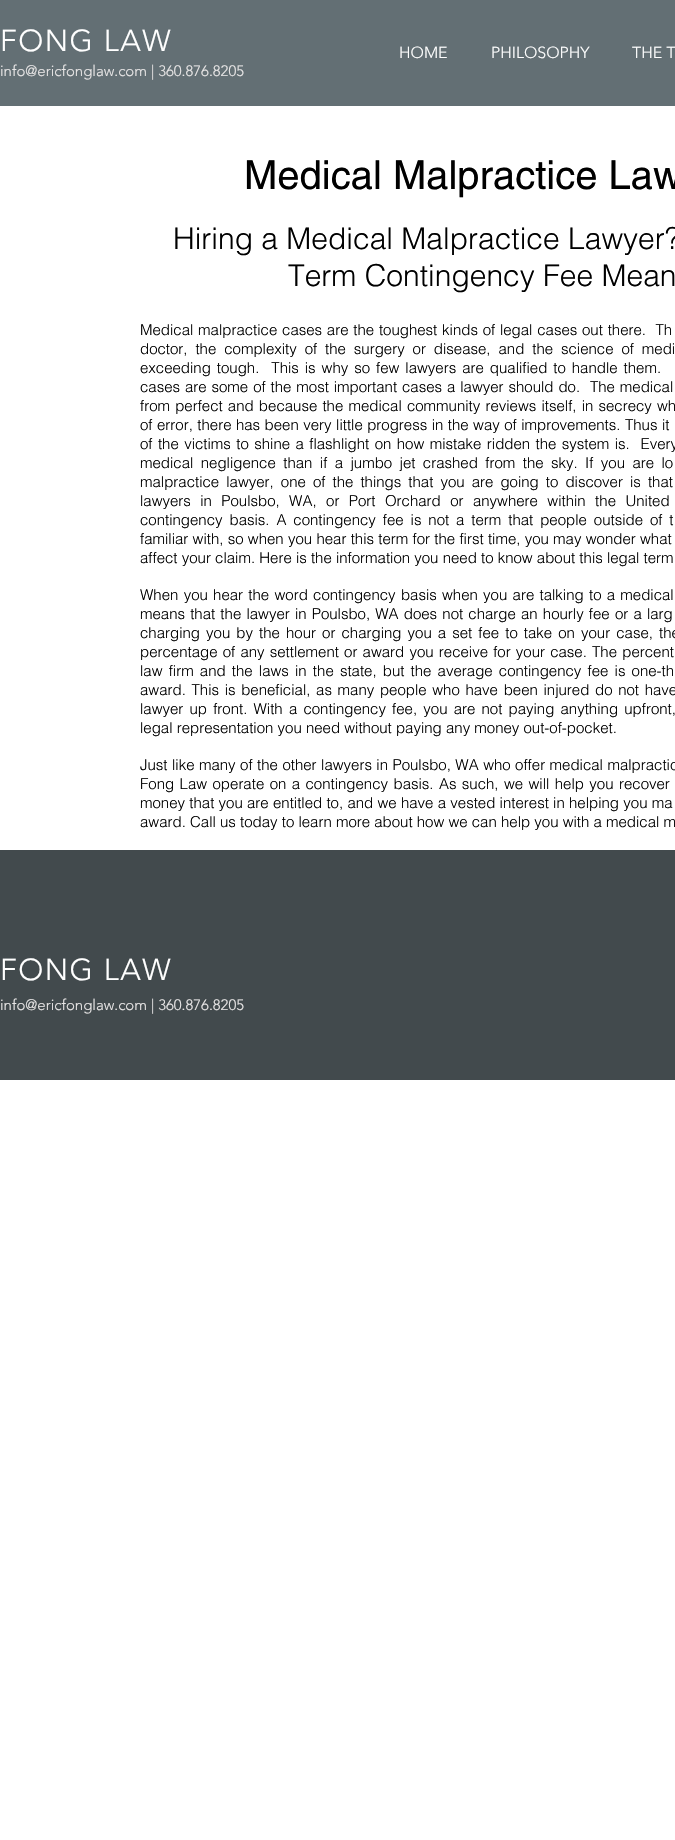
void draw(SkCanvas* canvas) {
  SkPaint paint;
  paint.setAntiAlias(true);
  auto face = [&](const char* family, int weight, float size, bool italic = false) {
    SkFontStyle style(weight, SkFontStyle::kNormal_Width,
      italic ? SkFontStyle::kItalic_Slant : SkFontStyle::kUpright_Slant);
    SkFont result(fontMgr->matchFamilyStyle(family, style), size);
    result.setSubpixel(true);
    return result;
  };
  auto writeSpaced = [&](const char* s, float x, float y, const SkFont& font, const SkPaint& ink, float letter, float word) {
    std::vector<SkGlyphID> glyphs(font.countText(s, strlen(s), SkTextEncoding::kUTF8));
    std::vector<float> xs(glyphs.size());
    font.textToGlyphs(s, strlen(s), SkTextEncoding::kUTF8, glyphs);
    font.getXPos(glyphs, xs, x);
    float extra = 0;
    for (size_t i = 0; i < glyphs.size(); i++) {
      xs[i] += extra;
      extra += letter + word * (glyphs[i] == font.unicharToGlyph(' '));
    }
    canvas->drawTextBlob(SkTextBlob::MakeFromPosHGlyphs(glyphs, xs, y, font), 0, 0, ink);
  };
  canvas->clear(0xffffffff);
  paint.setColor(0xff636f74);
  canvas->drawRect(SkRect::MakeXYWH(0, 0, 675, 106), paint);
  paint.setColor(0xff424a4d);
  canvas->drawRect(SkRect::MakeXYWH(0, 850, 675, 230), paint);
  auto f0 = face("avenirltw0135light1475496", 300, 30);
  paint.setColor(0xffffffff);
  writeSpaced("FONG LAW", 0, 51, f0, paint, 1.5f, 0);
  auto f1 = face("avenirltw0135light1475496", 300, 16);
  {
    const struct { const char* s; float x, y; } items[] = {
      {"HOME", 399, 58},
      {"PHILOSOPHY", 491, 58},
      {"THE T", 632, 58},
    };
    for (auto [s, x, y] : items) {
      canvas->drawString(s, x, y, f1, paint);
    }
  }
  auto f2 = face("avenirltw0135light1475496", 300, 15);
  paint.setColor(0xffe8e6e6);
  canvas->drawString("info@ericfonglaw.com | 360.876.8205", 0, 76, f2, paint);
  auto f3 = face("helvetica", 400, 40);
  paint.setColor(0xff000000);
  canvas->drawString("Medical Malpractice Law", 244, 189, f3, paint);
  auto f4 = face("helvetica", 300, 30);
  canvas->drawString("Hiring a Medical Malpractice Lawyer?", 173, 249, f4, paint);
  canvas->drawString("Term Contingency Fee Mean", 288, 286, f4, paint);
  auto f5 = face("helvetica", 300, 15);
  writeSpaced("Medical malpractice cases are the toughest kinds of legal cases out there.  Th", 140, 335, f5, paint, 0, 0.6f);
  writeSpaced("doctor, the complexity of the surgery or disease, and the science of medi", 140, 354, f5, paint, 0, 3.75f);
  writeSpaced("exceeding tough.  This is why so few lawyers are qualified to handle them.", 140, 373, f5, paint, 0, 1.8f);
  writeSpaced("cases are some of the most important cases a lawyer should do.  The medical", 140, 392, f5, paint, 0, 0.75f);
  writeSpaced("from perfect and because the medical community reviews itself, in secrecy wh", 140, 411, f5, paint, 0, 1);
  writeSpaced("of error, there has been very little progress in the way of improvements. Thus it", 140, 430, f5, paint, 0, 0.3f);
  writeSpaced("of the victims to shine a flashlight on how mistake ridden the system is.  Every", 140, 449, f5, paint, 0, 1.25f);
  writeSpaced("medical negligence than if a jumbo jet crashed from the sky. If you are lo", 140, 468, f5, paint, 0, 3.25f);
  writeSpaced("malpractice lawyer, one of the things that you are going to discover is that", 140, 487, f5, paint, 0, 2.9f);
  writeSpaced("lawyers in Poulsbo, WA, or Port Orchard or anywhere within the United", 140, 506, f5, paint, 0, 5.25f);
  writeSpaced("contingency basis. A contingency fee is not a term that people outside of t", 140, 525, f5, paint, 0, 2.75f);
  writeSpaced("familiar with, so when you hear this term for the first time, you may wonder what", 140, 544, f5, paint, 0, 0.1f);
  canvas->drawString("affect your claim. Here is the information you need to know about this legal term", 140, 563, f5, paint);
  writeSpaced("When you hear the word contingency basis when you are talking to a medical", 140, 600, f5, paint, 0, 1.1f);
  writeSpaced("means that the lawyer in Poulsbo, WA does not charge an hourly fee or a larg", 140, 619, f5, paint, 0, 1);
  writeSpaced("charging you by the hour or charging you a set fee to take on your case, the", 140, 638, f5, paint, 0, 1.9f);
  writeSpaced("percentage of any settlement or award you receive for your case. The percent", 140, 657, f5, paint, 0, 1);
  writeSpaced("law firm and the laws in the state, but the average contingency fee is one-th", 140, 676, f5, paint, 0, 2);
  writeSpaced("award. This is beneficial, as many people who have been injured do not have", 140, 695, f5, paint, 0, 1.5f);
  writeSpaced("lawyer up front. With a contingency fee, you are not paying anything upfront,", 140, 714, f5, paint, 0, 2);
  canvas->drawString("legal representation you need without paying any money out-of-pocket.", 140, 733, f5, paint);
  writeSpaced("Just like many of the other lawyers in Poulsbo, WA who offer medical malpractic", 140, 770, f5, paint, 0, 0.3f);
  writeSpaced("Fong Law operate on a contingency basis. As such, we will help you recover", 140, 789, f5, paint, 0, 1.25f);
  writeSpaced("money that you are entitled to, and we have a vested interest in helping you ma", 140, 808, f5, paint, 0, 0.1f);
  canvas->drawString("award. Call us today to learn more about how we can help you with a medical m", 140, 827, f5, paint);
  paint.setColor(0xffffffff);
  writeSpaced("FONG LAW", 0, 980, f0, paint, 1.5f, 0);
  paint.setColor(0xffe8e6e6);
  canvas->drawString("info@ericfonglaw.com | 360.876.8205", 0, 1010, f2, paint);
}
